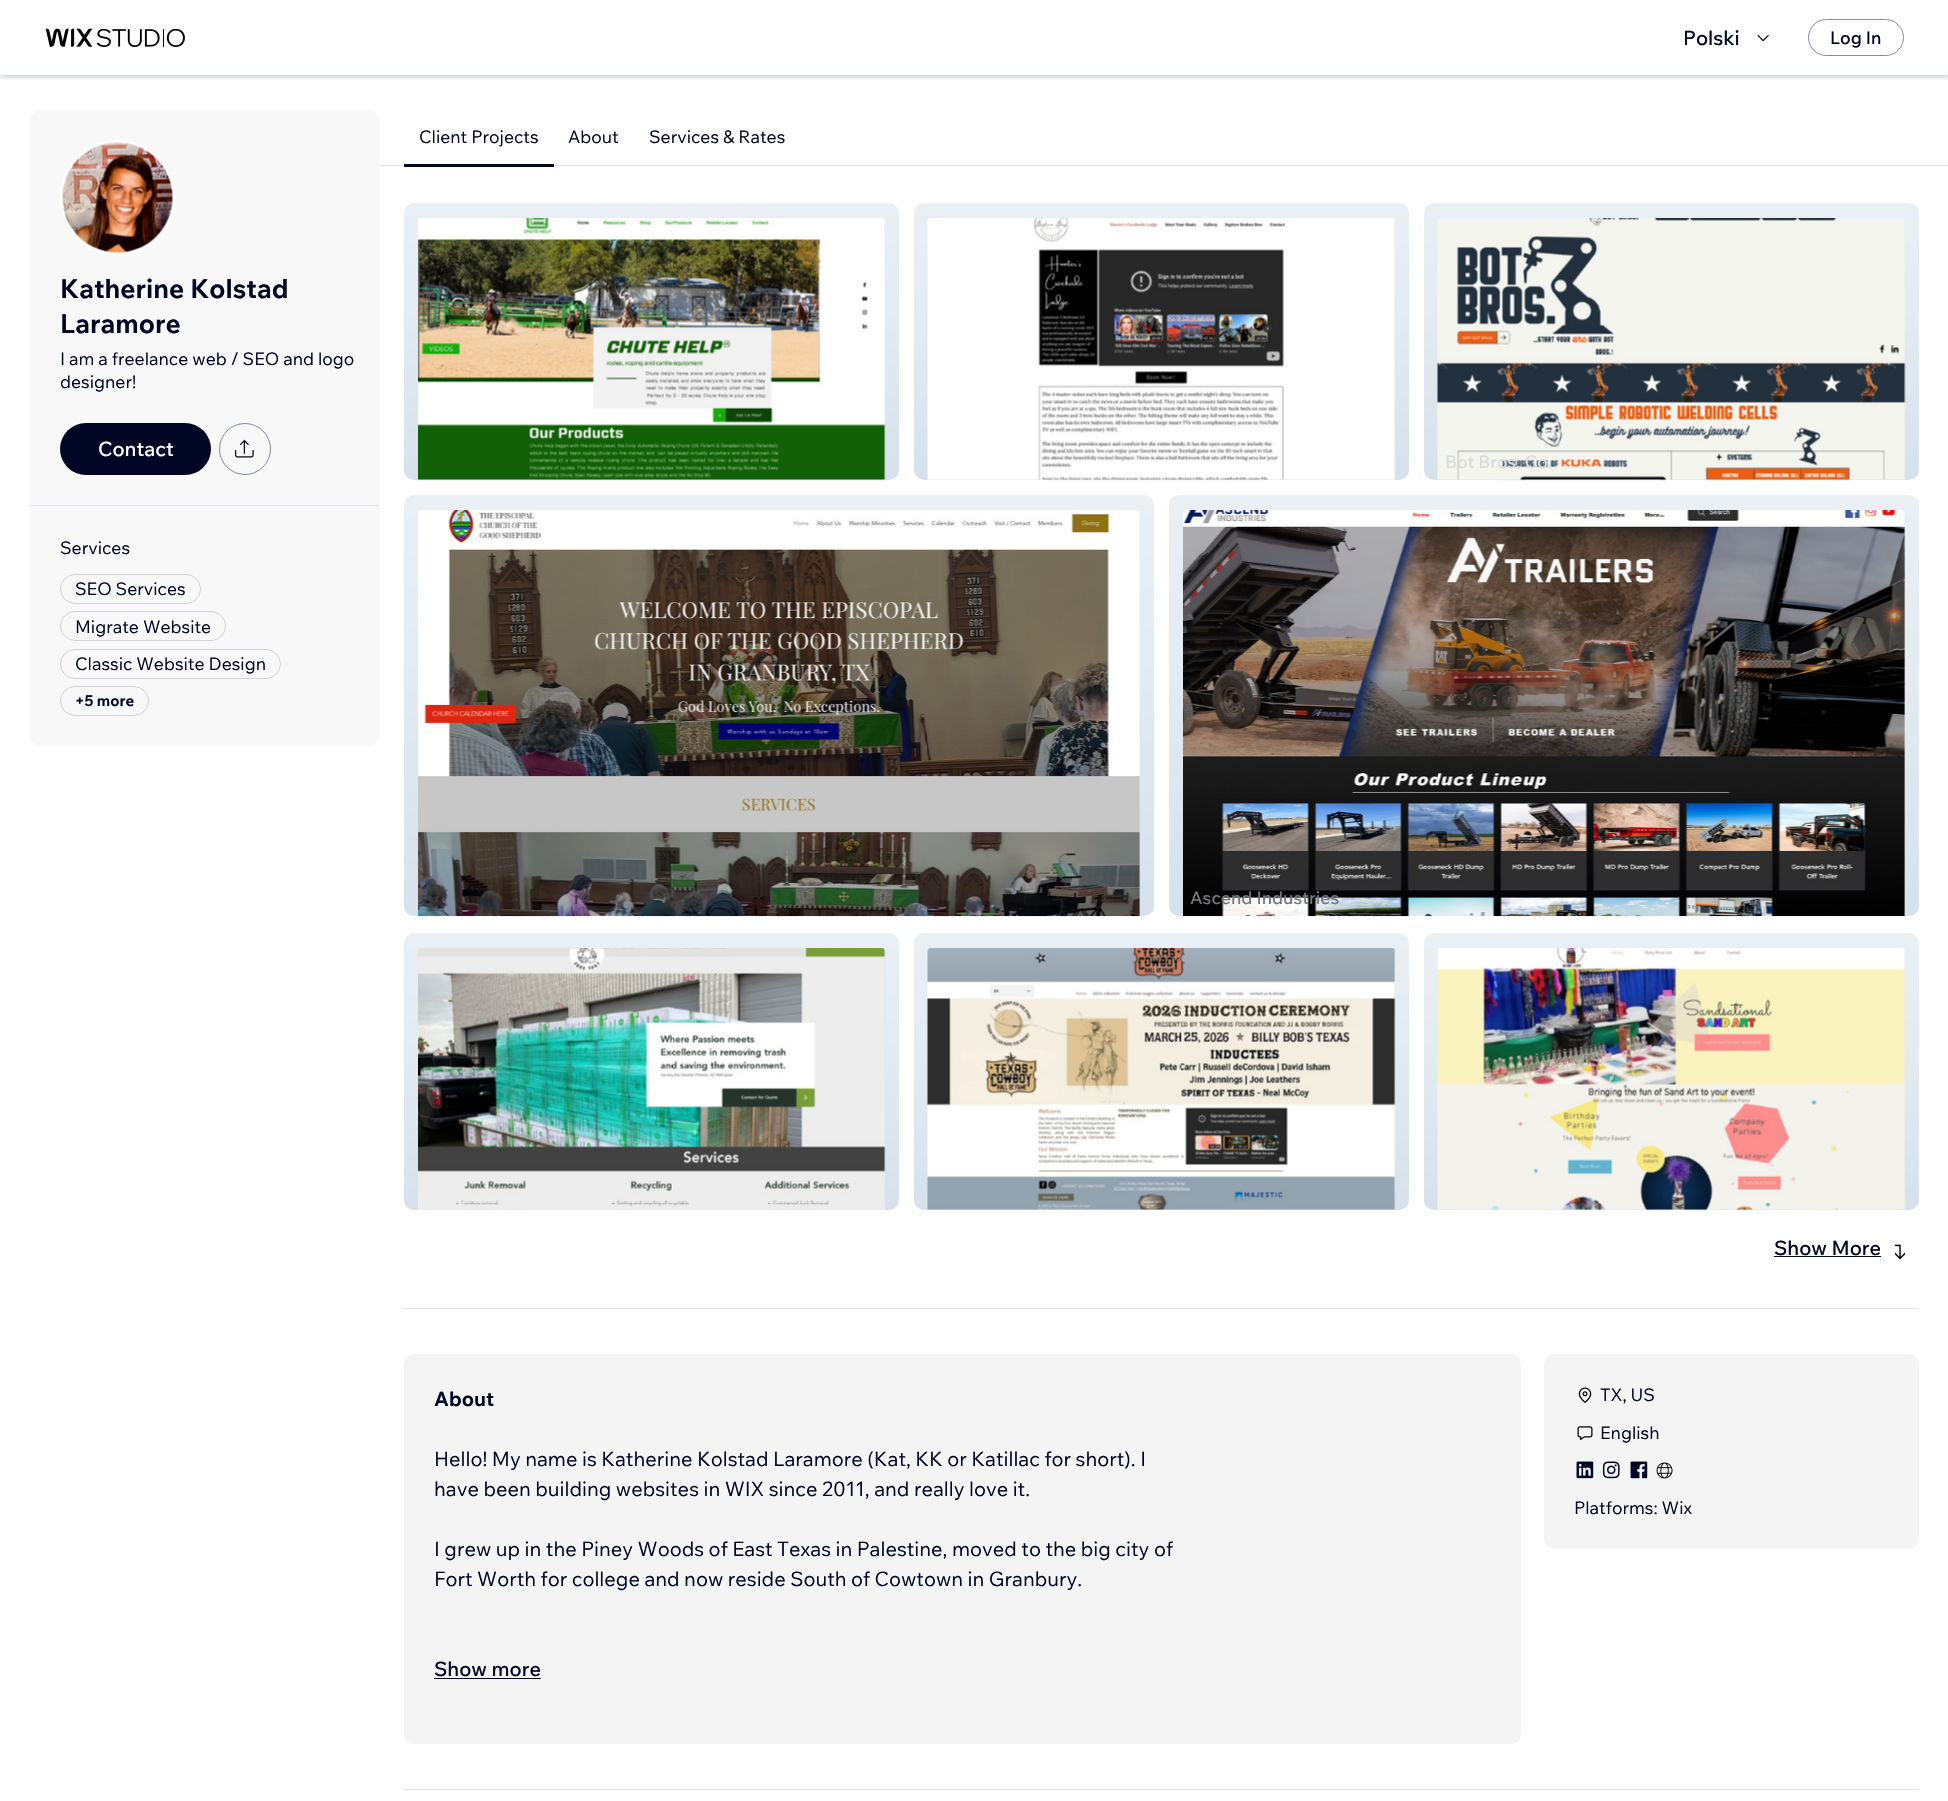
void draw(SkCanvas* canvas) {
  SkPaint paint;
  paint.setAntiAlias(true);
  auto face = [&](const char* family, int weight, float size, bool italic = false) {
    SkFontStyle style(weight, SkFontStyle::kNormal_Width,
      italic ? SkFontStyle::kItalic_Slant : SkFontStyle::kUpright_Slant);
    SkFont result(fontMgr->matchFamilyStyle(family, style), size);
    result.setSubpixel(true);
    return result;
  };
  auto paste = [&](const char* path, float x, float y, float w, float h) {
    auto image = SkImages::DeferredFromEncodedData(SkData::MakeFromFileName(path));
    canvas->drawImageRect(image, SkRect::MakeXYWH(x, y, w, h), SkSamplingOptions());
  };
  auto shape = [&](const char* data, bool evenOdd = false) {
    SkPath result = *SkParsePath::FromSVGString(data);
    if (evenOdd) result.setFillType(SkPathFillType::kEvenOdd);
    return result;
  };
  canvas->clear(0xffffffff);
  canvas->save();
  canvas->clipRect(SkRect::MakeXYWH(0, 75, 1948, 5));
  paint.setColor(0x1f000624);
  paint.setMaskFilter(SkMaskFilter::MakeBlur(kNormal_SkBlurStyle, 2.5f));
  canvas->drawRect(SkRect::MakeXYWH(0, 3, 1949, 75), paint);
  paint.setMaskFilter(nullptr);
  canvas->restore();
  canvas->save();
  canvas->clipRect(SkRect::MakeXYWH(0, 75, 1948, 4));
  paint.setMaskFilter(SkMaskFilter::MakeBlur(kNormal_SkBlurStyle, 4));
  canvas->drawRect(SkRect::MakeXYWH(0, 0, 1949, 75), paint);
  paint.setMaskFilter(nullptr);
  canvas->restore();
  paste("img/1.png", 45, 28, 48, 19);
  paste("img/2.png", 96, 29, 89, 18);
  paste("img/3.png", 1757, 35, 12, 7);
  paint.setStroke(true);
  paint.setStrokeWidth(1);
  paint.setColor(0xff868aa5);
  canvas->drawRoundRect(SkRect::MakeXYWH(1808.5f, 19.5f, 95, 36), 18, 18, paint);
  paint.setStroke(false);
  paint.setColor(0xfff8f8f9);
  canvas->drawRoundRect(SkRect::MakeXYWH(30, 110, 349, 636), 10, 10, paint);
  paint.setStroke(true);
  paint.setStrokeWidth(3);
  paint.setColor(0xffffffff);
  canvas->drawCircle(117.5f, 197.5f, 56, paint);
  paste("img/4.png", 62, 142, 111, 111);
  paint.setStroke(false);
  paint.setColor(0xff000624);
  canvas->drawRoundRect(SkRect::MakeXYWH(60, 423, 151, 52), 26, 26, paint);
  paint.setStroke(true);
  paint.setStrokeWidth(1);
  paint.setColor(0xff868aa5);
  canvas->drawCircle(245, 449, 25.5f, paint);
  paste("img/5.png", 235, 439, 19, 19);
  paint.setStroke(false);
  paint.setColor(0xffdfe5eb);
  canvas->drawRect(SkRect::MakeXYWH(30, 505, 349, 1), paint);
  paint.setStroke(true);
  paint.setColor(0xffcfd1dc);
  canvas->drawRoundRect(SkRect::MakeXYWH(60.5f, 574.5f, 140, 29), 14.5f, 14.5f, paint);
  canvas->drawRoundRect(SkRect::MakeXYWH(60.5f, 611.5f, 165, 29), 14.5f, 14.5f, paint);
  canvas->drawRoundRect(SkRect::MakeXYWH(60.5f, 649.5f, 220, 29), 14.5f, 14.5f, paint);
  canvas->drawRoundRect(SkRect::MakeXYWH(60.5f, 686.5f, 88, 29), 14.5f, 14.5f, paint);
  paint.setStroke(false);
  paint.setColor(0xffdfe5eb);
  canvas->drawRect(SkRect::MakeXYWH(379, 165, 1569, 1), paint);
  paint.setColor(0xff000624);
  canvas->drawRect(SkRect::MakeXYWH(404, 164, 150, 3), paint);
  {
    const SkColor colors[] = {0xffeaeff4, 0xffe2eaf0, 0xffd7e1eb};
    const float stops[] = {0, 0.5f, 1};
    const SkPoint ends[] = {{651, 202}, {651, 480}};
    paint.setShader(SkGradientShader::MakeLinear(ends, colors, stops, 3, SkTileMode::kClamp));
    paint.setAlpha(255);
  }
  canvas->drawRoundRect(SkRect::MakeXYWH(404, 203, 495, 277), 10, 10, paint);
  paint.setShader(nullptr);
  paint.setColor(0xffdfe5eb);
  canvas->drawPath(shape("M422 218H881C883 218 885 220 885 222V480H418V222C418 220 420 218 422 218Z"), paint);
  paste("img/6.png", 418, 218, 468, 263);
  {
    const SkColor colors[] = {0xffeaeff4, 0xffe2eaf0, 0xffd7e1eb};
    const float stops[] = {0, 0.5f, 1};
    const SkPoint ends[] = {{1161, 202}, {1161, 480}};
    paint.setShader(SkGradientShader::MakeLinear(ends, colors, stops, 3, SkTileMode::kClamp));
    paint.setAlpha(255);
  }
  canvas->drawRoundRect(SkRect::MakeXYWH(914, 203, 495, 277), 10, 10, paint);
  paint.setShader(nullptr);
  paint.setColor(0xffdfe5eb);
  canvas->drawPath(shape("M932 218H1391C1393 218 1395 220 1395 222V480H928V222C928 220 930 218 932 218Z"), paint);
  paste("img/7.png", 927, 218, 468, 263);
  {
    const SkColor colors[] = {0xffeaeff4, 0xffe2eaf0, 0xffd7e1eb};
    const float stops[] = {0, 0.5f, 1};
    const SkPoint ends[] = {{1671, 202}, {1671, 480}};
    paint.setShader(SkGradientShader::MakeLinear(ends, colors, stops, 3, SkTileMode::kClamp));
    paint.setAlpha(255);
  }
  canvas->drawRoundRect(SkRect::MakeXYWH(1424, 203, 495, 277), 10, 10, paint);
  paint.setShader(nullptr);
  paint.setColor(0xffdfe5eb);
  canvas->drawPath(shape("M1442 218H1901C1903 218 1905 220 1905 222V480H1438V222C1438 220 1440 218 1442 218Z"), paint);
  paste("img/8.png", 1437, 218, 469, 263);
  {
    const SkColor colors[] = {0xffeaeff4, 0xffe2eaf0, 0xffd7e1eb};
    const float stops[] = {0, 0.5f, 1};
    const SkPoint ends[] = {{779, 495}, {779, 916}};
    paint.setShader(SkGradientShader::MakeLinear(ends, colors, stops, 3, SkTileMode::kClamp));
    paint.setAlpha(255);
  }
  canvas->drawRoundRect(SkRect::MakeXYWH(404, 495, 750, 421), 10, 10, paint);
  paint.setShader(nullptr);
  paint.setColor(0xffdfe5eb);
  canvas->drawPath(shape("M422 510H1136C1138 510 1140 512 1140 514V916H418V514C418 512 420 510 422 510Z"), paint);
  paste("img/9.png", 418, 510, 722, 407);
  {
    const SkColor colors[] = {0xffeaeff4, 0xffe2eaf0, 0xffd7e1eb};
    const float stops[] = {0, 0.5f, 1};
    const SkPoint ends[] = {{1544, 495}, {1544, 916}};
    paint.setShader(SkGradientShader::MakeLinear(ends, colors, stops, 3, SkTileMode::kClamp));
    paint.setAlpha(255);
  }
  canvas->drawRoundRect(SkRect::MakeXYWH(1169, 495, 750, 421), 10, 10, paint);
  paint.setShader(nullptr);
  paint.setColor(0xffdfe5eb);
  canvas->drawPath(shape("M1187 510H1901C1903 510 1905 512 1905 514V916H1183V514C1183 512 1185 510 1187 510Z"), paint);
  paste("img/10.png", 1183, 510, 722, 407);
  {
    const SkColor colors[] = {0xffeaeff4, 0xffe2eaf0, 0xffd7e1eb};
    const float stops[] = {0, 0.5f, 1};
    const SkPoint ends[] = {{651, 933}, {651, 1210}};
    paint.setShader(SkGradientShader::MakeLinear(ends, colors, stops, 3, SkTileMode::kClamp));
    paint.setAlpha(255);
  }
  canvas->drawRoundRect(SkRect::MakeXYWH(404, 933, 495, 277), 10, 10, paint);
  paint.setShader(nullptr);
  paint.setColor(0xffdfe5eb);
  canvas->drawPath(shape("M422 948H881C883 948 885 950 885 952V1210H418V952C418 950 420 948 422 948Z"), paint);
  paste("img/11.png", 418, 948, 468, 262);
  {
    const SkColor colors[] = {0xffeaeff4, 0xffe2eaf0, 0xffd7e1eb};
    const float stops[] = {0, 0.5f, 1};
    const SkPoint ends[] = {{1161, 933}, {1161, 1210}};
    paint.setShader(SkGradientShader::MakeLinear(ends, colors, stops, 3, SkTileMode::kClamp));
    paint.setAlpha(255);
  }
  canvas->drawRoundRect(SkRect::MakeXYWH(914, 933, 495, 277), 10, 10, paint);
  paint.setShader(nullptr);
  paint.setColor(0xffdfe5eb);
  canvas->drawPath(shape("M932 948H1391C1393 948 1395 950 1395 952V1210H928V952C928 950 930 948 932 948Z"), paint);
  paste("img/12.png", 927, 948, 469, 263);
  {
    const SkColor colors[] = {0xffeaeff4, 0xffe2eaf0, 0xffd7e1eb};
    const float stops[] = {0, 0.5f, 1};
    const SkPoint ends[] = {{1671, 933}, {1671, 1210}};
    paint.setShader(SkGradientShader::MakeLinear(ends, colors, stops, 3, SkTileMode::kClamp));
    paint.setAlpha(255);
  }
  canvas->drawRoundRect(SkRect::MakeXYWH(1424, 933, 495, 277), 10, 10, paint);
  paint.setShader(nullptr);
  paint.setColor(0xffdfe5eb);
  canvas->drawPath(shape("M1442 948H1901C1903 948 1905 950 1905 952V1210H1438V952C1438 950 1440 948 1442 948Z"), paint);
  paste("img/13.png", 1437, 948, 469, 263);
  paint.setColor(0xff000624);
  canvas->drawRect(SkRect::MakeXYWH(1774, 1256, 107, 1), paint);
  paste("img/14.png", 1895, 1244, 10, 16);
  paint.setColor(0xffdfe5eb);
  canvas->drawRect(SkRect::MakeXYWH(404, 1308, 1515, 1), paint);
  paint.setColor(0xfff4f4f4);
  canvas->drawRoundRect(SkRect::MakeXYWH(404, 1354, 1117, 390), 10, 10, paint);
  paint.setColor(0xff000624);
  canvas->drawRect(SkRect::MakeXYWH(434, 1678, 107, 1), paint);
  paint.setColor(0xfff4f4f4);
  canvas->drawRoundRect(SkRect::MakeXYWH(1544, 1354, 375, 195), 10, 10, paint);
  paste("img/15.png", 1578, 1387, 14, 16);
  paste("img/16.png", 1577, 1426, 16, 14);
  paste("img/17.png", 1576, 1461, 18, 18);
  paste("img/18.png", 1602, 1461, 18, 18);
  paste("img/19.png", 1630, 1461, 18, 18);
  paste("img/20.png", 1656, 1462, 17, 17);
  paint.setColor(0xffdfe5eb);
  canvas->drawRect(SkRect::MakeXYWH(404, 1789, 1515, 1), paint);
  auto f0 = face("Wix Madefor Text", 500, 20);
  paint.setColor(0xff000624);
  canvas->drawString("Polski", 1683, 45, f0, paint);
  auto f1 = face("Wix Madefor Text", 500, 17.5f);
  canvas->drawString("Log In", 1830, 44, f1, paint);
  auto f2 = face("Wix Madefor Text", 700, 26.25f);
  canvas->drawString("Katherine Kolstad", 60, 298, f2, paint);
  canvas->drawString("Laramore", 60, 333, f2, paint);
  auto f3 = face("Wix Madefor Text", 400, 17.5f);
  canvas->drawString("I am a freelance web / SEO and logo", 60, 365, f3, paint);
  canvas->drawString("designer!", 60, 388, f3, paint);
  paint.setColor(0xffffffff);
  canvas->drawString("Contact", 98, 456, f0, paint);
  paint.setColor(0xff000624);
  {
    const struct { const char* s; float x, y; } items[] = {
      {"Services", 60, 554},
      {"SEO Services", 75, 595},
      {"Migrate Website", 75, 633},
      {"Classic Website Design", 75, 670},
    };
    for (auto [s, x, y] : items) {
      canvas->drawString(s, x, y, f3, paint);
    }
  }
  auto f4 = face("Wix Madefor Text", 700, 15);
  canvas->drawString("+5 more", 75, 706, f4, paint);
  {
    const struct { const char* s; float x, y; } items[] = {
      {"Client Projects", 419, 143},
      {"About", 568, 143},
      {"Services & Rates", 649, 143},
    };
    for (auto [s, x, y] : items) {
      canvas->drawString(s, x, y, f3, paint);
    }
  }
  paint.setColor(0xffd9dcda);
  canvas->drawString("Bot Bros. Co.", 1445, 468, f1, paint);
  paint.setColor(0xff40383a);
  canvas->drawString("r", 574, 904, f1, paint);
  paint.setColor(0xff767779);
  canvas->drawString("Ascend Industries", 1190, 904, f1, paint);
  paint.setColor(0xff000624);
  canvas->drawString("Show More", 1774, 1255, f0, paint);
  auto f5 = face("Wix Madefor Text", 700, 20);
  canvas->drawString("About", 434, 1406, f5, paint);
  auto f6 = face("Wix Madefor Text", 400, 20);
  {
    const struct { const char* s; float x, y; } items[] = {
      {"Hello! My name is Katherine Kolstad Laramore (Kat, KK or Katillac for short). I", 434, 1466},
      {"have been building websites in WIX since 2011, and really love it.", 434, 1496},
      {"I grew up in the Piney Woods of East Texas in Palestine, moved to the big city of", 434, 1556},
      {"Fort Worth for college and now reside South of Cowtown in Granbury.", 434, 1586},
    };
    for (auto [s, x, y] : items) {
      canvas->drawString(s, x, y, f6, paint);
    }
  }
  canvas->drawString("Show more", 434, 1676, f0, paint);
  {
    const struct { const char* s; float x, y; } items[] = {
      {"TX, US", 1600, 1401},
      {"English", 1600, 1439},
      {"Platforms: Wix", 1574, 1514},
    };
    for (auto [s, x, y] : items) {
      canvas->drawString(s, x, y, f3, paint);
    }
  }
}
